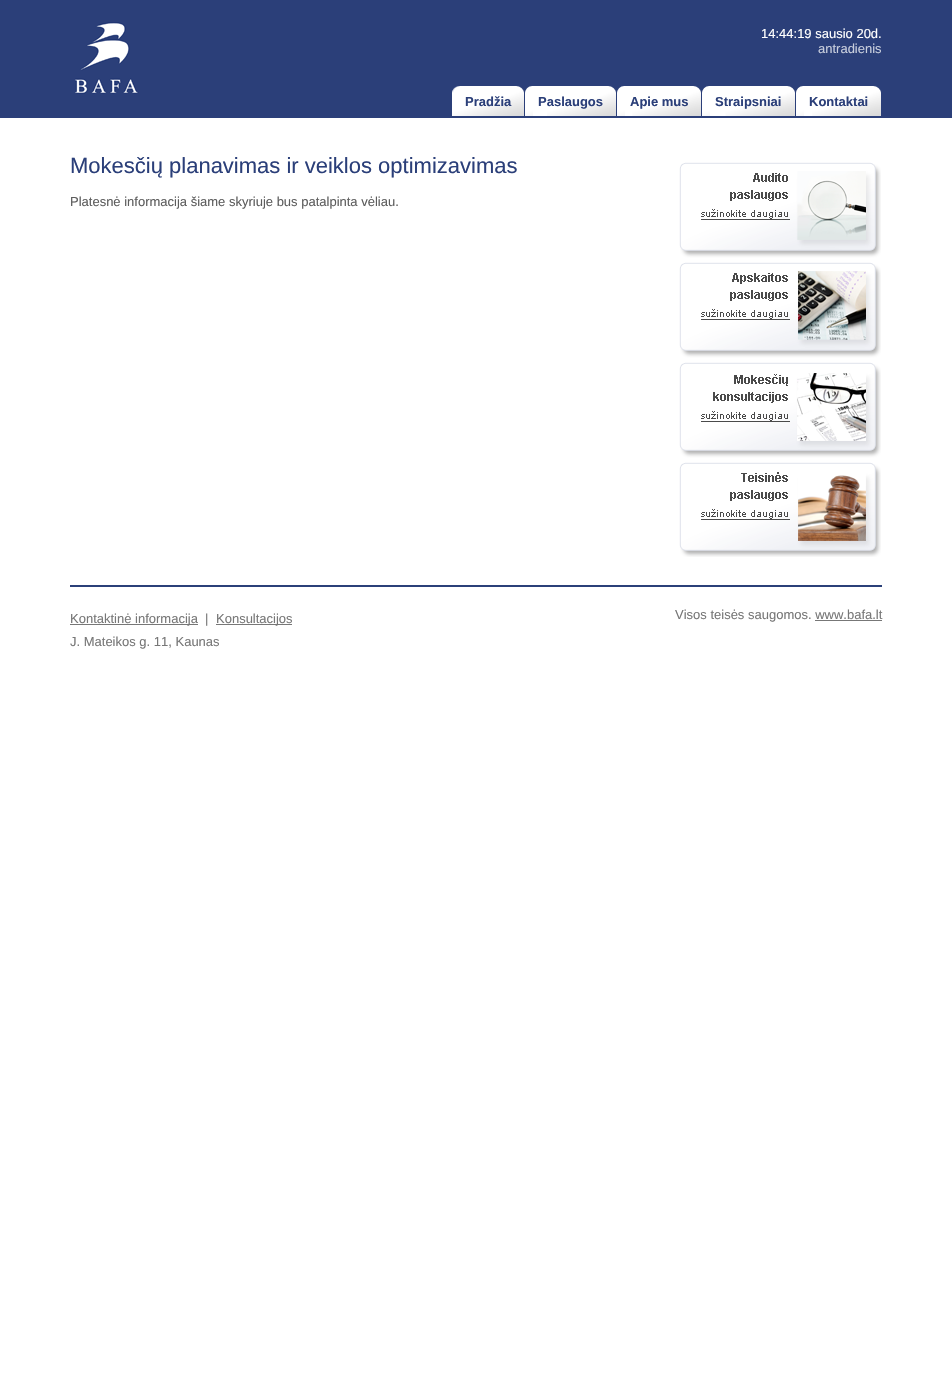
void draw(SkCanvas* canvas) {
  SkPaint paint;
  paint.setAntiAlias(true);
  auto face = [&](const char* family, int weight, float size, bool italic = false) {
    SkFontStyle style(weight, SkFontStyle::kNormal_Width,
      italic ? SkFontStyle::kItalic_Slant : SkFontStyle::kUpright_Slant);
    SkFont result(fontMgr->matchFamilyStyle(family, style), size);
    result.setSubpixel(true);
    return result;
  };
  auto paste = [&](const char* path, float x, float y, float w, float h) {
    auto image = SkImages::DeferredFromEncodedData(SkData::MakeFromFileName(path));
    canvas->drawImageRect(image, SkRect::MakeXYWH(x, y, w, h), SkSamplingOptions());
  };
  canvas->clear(0xffffffff);
  paint.setColor(0xff2b3f79);
  canvas->drawRect(SkRect::MakeXYWH(0, 0, 952, 118), paint);
  paste("img/1.png", 75, 22, 64, 72);
  paste("img/2.png", 460, 86, 64, 30);
  paste("img/3.png", 452, 86, 8, 30);
  paste("img/4.png", 533, 86, 83, 30);
  paste("img/5.png", 525, 86, 8, 30);
  paste("img/6.png", 625, 86, 76, 30);
  paste("img/5.png", 617, 86, 8, 30);
  paste("img/7.png", 710, 86, 85, 30);
  paste("img/5.png", 702, 86, 8, 30);
  paste("img/8.png", 804, 86, 77, 30);
  paste("img/5.png", 796, 86, 8, 30);
  paste("img/9.png", 679, 162, 202, 395);
  {
    const struct { float x, y, w, h; SkColor color; } items[] = {
      {70, 585, 812, 2, 0xff2b4079},
      {70, 624, 128, 1, 0xff777777},
      {216, 624, 76, 1, 0xff777777},
      {815, 620, 67, 1, 0xff777777},
    };
    for (auto [x, y, w, h, color] : items) {
      paint.setColor(color);
      canvas->drawRect(SkRect::MakeXYWH(x, y, w, h), paint);
    }
  }
  auto f0 = face("Liberation Sans", 400, 13);
  paint.setColor(0xffffffff);
  canvas->drawString("14:44:19 sausio 20d.", 761, 38, f0, paint);
  paint.setColor(0xffc8cedd);
  canvas->drawString("antradienis", 818, 53, f0, paint);
  auto f1 = face("Liberation Sans", 700, 13);
  paint.setColor(0xff2b3f79);
  {
    const struct { const char* s; float x, y; } items[] = {
      {"Pradžia", 465, 106},
      {"Paslaugos", 538, 106},
      {"Apie mus", 630, 106},
      {"Straipsniai", 715, 106},
      {"Kontaktai", 809, 106},
    };
    for (auto [s, x, y] : items) {
      canvas->drawString(s, x, y, f1, paint);
    }
  }
  auto f2 = face("Liberation Sans", 400, 22);
  canvas->drawString("Mokesčių planavimas ir veiklos optimizavimas", 70, 173, f2, paint);
  paint.setColor(0xff5d5d5d);
  canvas->drawString("Platesnė informacija šiame skyriuje bus patalpinta vėliau.", 70, 206, f0, paint);
  paint.setColor(0xff777777);
  {
    const struct { const char* s; float x, y; } items[] = {
      {"Kontaktinė informacija", 70, 623},
      {"|", 205, 623},
      {"Konsultacijos", 216, 623},
      {"J. Mateikos g. 11, Kaunas", 70, 646},
      {"Visos teisės saugomos. www.bafa.lt", 675, 619},
    };
    for (auto [s, x, y] : items) {
      canvas->drawString(s, x, y, f0, paint);
    }
  }
}
